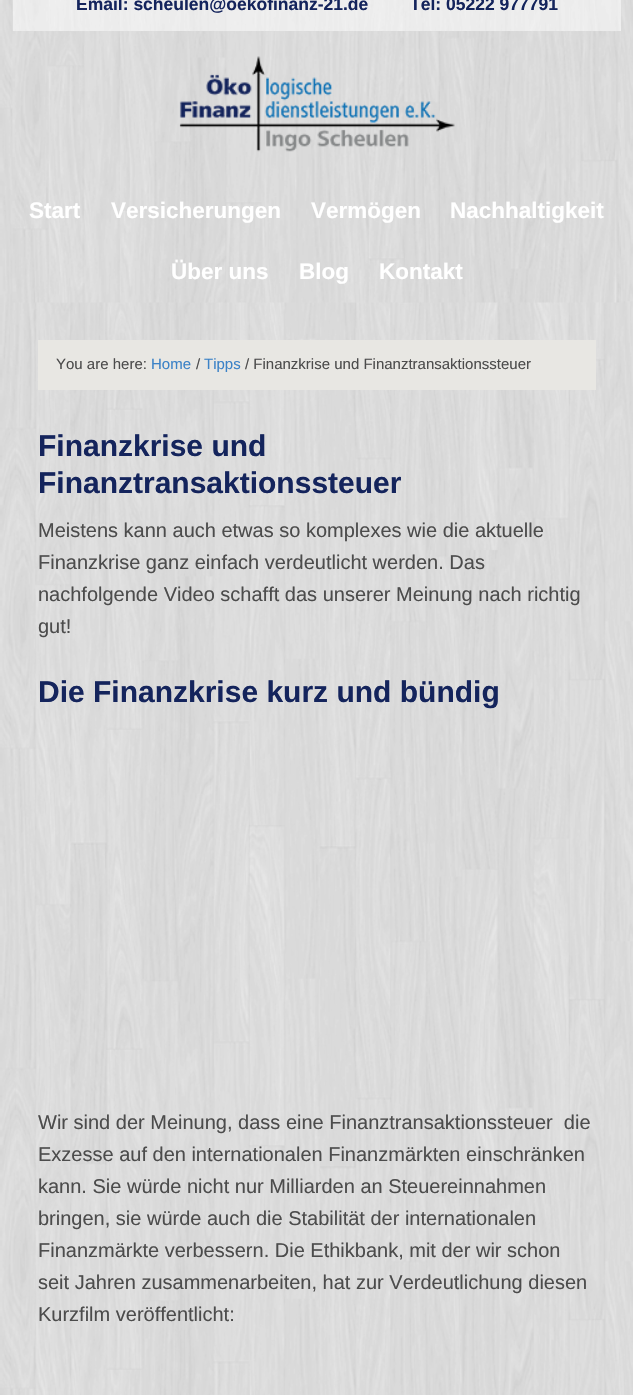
void draw(SkCanvas* canvas) {
  SkPaint paint;
  paint.setAntiAlias(true);
  auto face = [&](const char* family, int weight, float size, bool italic = false) {
    SkFontStyle style(weight, SkFontStyle::kNormal_Width,
      italic ? SkFontStyle::kItalic_Slant : SkFontStyle::kUpright_Slant);
    SkFont result(fontMgr->matchFamilyStyle(family, style), size);
    result.setSubpixel(true);
    return result;
  };
  auto paste = [&](const char* path, float x, float y, float w, float h) {
    auto image = SkImages::DeferredFromEncodedData(SkData::MakeFromFileName(path));
    canvas->drawImageRect(image, SkRect::MakeXYWH(x, y, w, h), SkSamplingOptions());
  };
  canvas->clear(0xffffffff);
  paste("img/1.png", 0, 0, 633, 1395);
  paste("img/2.png", 12, 0, 609, 31);
  paste("img/3.png", 12, 31, 609, 272);
  paste("img/4.png", 179, 56, 276, 96);
  paint.setColor(0xffe8e7e3);
  canvas->drawRect(SkRect::MakeXYWH(38, 340, 558, 50), paint);
  auto f0 = face("Liberation Sans", 700, 17.5f);
  paint.setColor(0xff14245c);
  canvas->drawString("Email: scheulen@oekofinanz-21.de", 76, 10, f0, paint);
  canvas->drawString("Tel: 05222 977791", 410, 10, f0, paint);
  auto f1 = face("Liberation Sans", 700, 22.5f);
  paint.setColor(0xffffffff);
  {
    const struct { const char* s; float x, y; } items[] = {
      {"Start", 29, 218},
      {"Versicherungen", 111, 218},
      {"Vermögen", 311, 218},
      {"Nachhaltigkeit", 450, 218},
      {"Über uns", 171, 279},
      {"Blog", 299, 279},
      {"Kontakt", 379, 279},
    };
    for (auto [s, x, y] : items) {
      canvas->drawString(s, x, y, f1, paint);
    }
  }
  auto f2 = face("Liberation Sans", 400, 15);
  paint.setColor(0xff4c4c4c);
  canvas->drawString("You are here:", 56, 369, f2, paint);
  paint.setColor(0xff3b82c7);
  canvas->drawString("Home", 151, 369, f2, paint);
  paint.setColor(0xff4c4c4c);
  canvas->drawString("/", 196, 369, f2, paint);
  paint.setColor(0xff3b82c7);
  canvas->drawString("Tipps", 204, 369, f2, paint);
  paint.setColor(0xff4c4c4c);
  canvas->drawString("/ Finanzkrise und Finanztransaktionssteuer", 245, 369, f2, paint);
  auto f3 = face("Liberation Sans", 700, 30);
  paint.setColor(0xff14245c);
  canvas->drawString("Finanzkrise und", 38, 456, f3, paint);
  canvas->drawString("Finanztransaktionssteuer", 38, 493, f3, paint);
  auto f4 = face("Liberation Sans", 400, 20);
  paint.setColor(0xff4c4c4c);
  {
    const struct { const char* s; float x, y; } items[] = {
      {"Meistens kann auch etwas so komplexes wie die aktuelle", 38, 537},
      {"Finanzkrise ganz einfach verdeutlicht werden. Das", 38, 569},
      {"nachfolgende Video schafft das unserer Meinung nach richtig", 38, 601},
      {"gut!", 38, 633},
    };
    for (auto [s, x, y] : items) {
      canvas->drawString(s, x, y, f4, paint);
    }
  }
  paint.setColor(0xff14245c);
  canvas->drawString("Die Finanzkrise kurz und bündig", 38, 702, f3, paint);
  paint.setColor(0xff4c4c4c);
  {
    const struct { const char* s; float x, y; } items[] = {
      {"Wir sind der Meinung, dass eine Finanztransaktionssteuer  die", 38, 1129},
      {"Exzesse auf den internationalen Finanzmärkten einschränken", 38, 1161},
      {"kann. Sie würde nicht nur Milliarden an Steuereinnahmen", 38, 1193},
      {"bringen, sie würde auch die Stabilität der internationalen", 38, 1225},
      {"Finanzmärkte verbessern. Die Ethikbank, mit der wir schon", 38, 1257},
      {"seit Jahren zusammenarbeiten, hat zur Verdeutlichung diesen", 38, 1289},
      {"Kurzfilm veröffentlicht:", 38, 1321},
    };
    for (auto [s, x, y] : items) {
      canvas->drawString(s, x, y, f4, paint);
    }
  }
}
